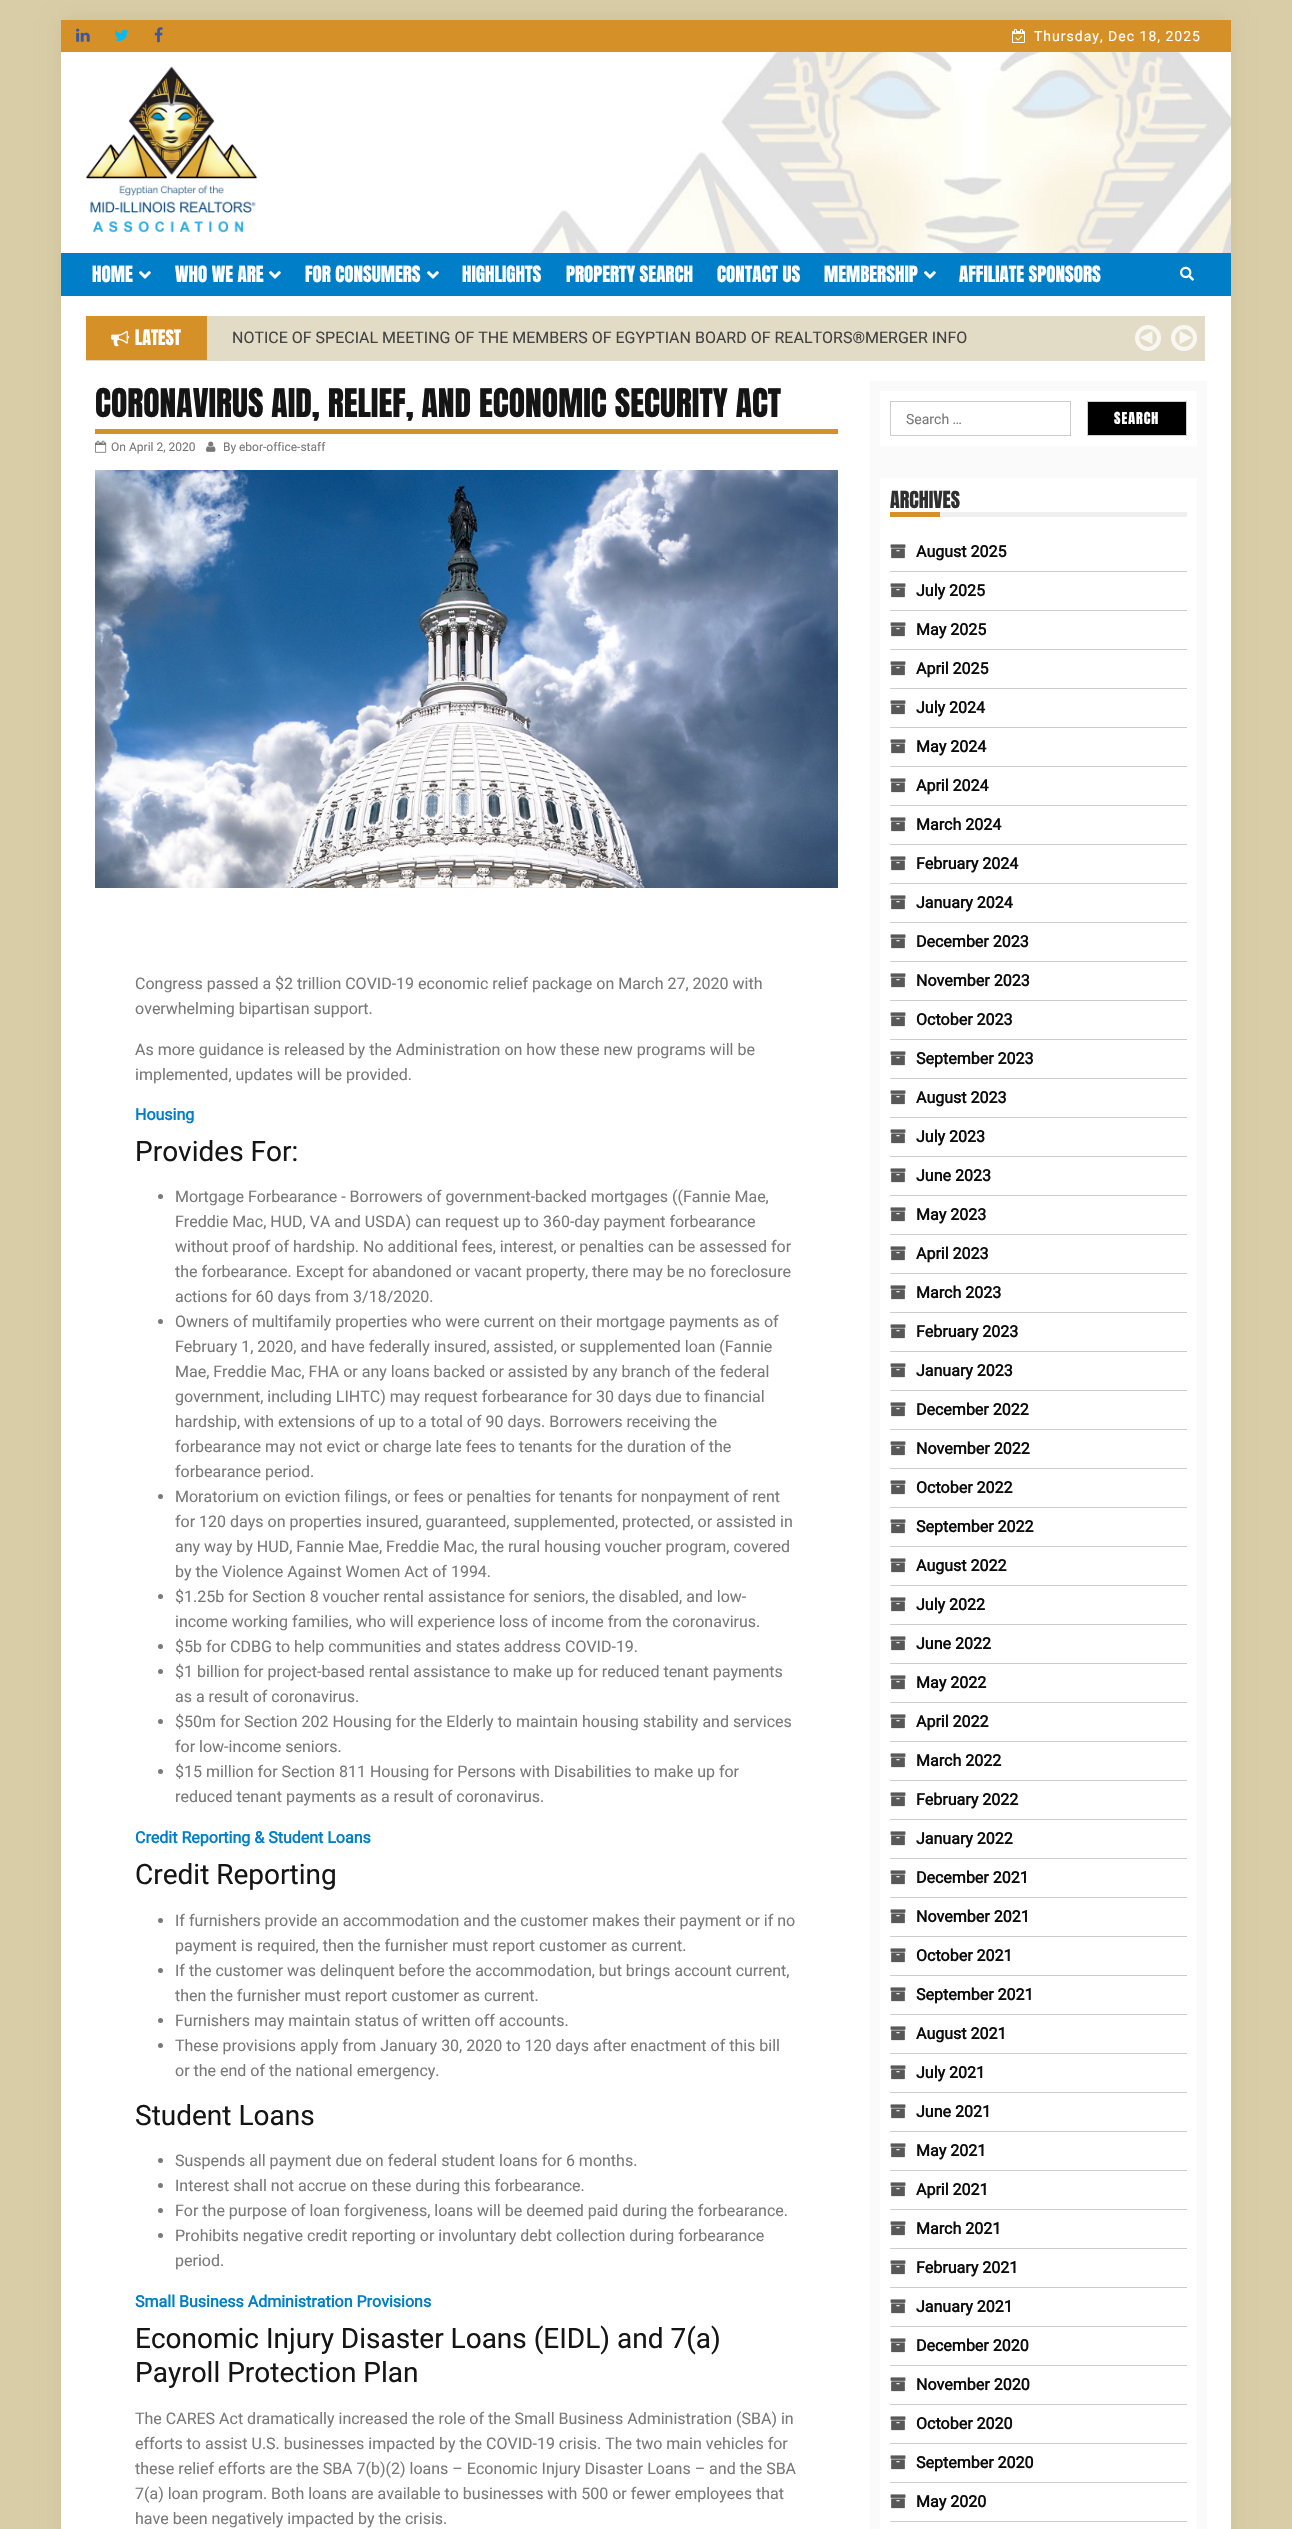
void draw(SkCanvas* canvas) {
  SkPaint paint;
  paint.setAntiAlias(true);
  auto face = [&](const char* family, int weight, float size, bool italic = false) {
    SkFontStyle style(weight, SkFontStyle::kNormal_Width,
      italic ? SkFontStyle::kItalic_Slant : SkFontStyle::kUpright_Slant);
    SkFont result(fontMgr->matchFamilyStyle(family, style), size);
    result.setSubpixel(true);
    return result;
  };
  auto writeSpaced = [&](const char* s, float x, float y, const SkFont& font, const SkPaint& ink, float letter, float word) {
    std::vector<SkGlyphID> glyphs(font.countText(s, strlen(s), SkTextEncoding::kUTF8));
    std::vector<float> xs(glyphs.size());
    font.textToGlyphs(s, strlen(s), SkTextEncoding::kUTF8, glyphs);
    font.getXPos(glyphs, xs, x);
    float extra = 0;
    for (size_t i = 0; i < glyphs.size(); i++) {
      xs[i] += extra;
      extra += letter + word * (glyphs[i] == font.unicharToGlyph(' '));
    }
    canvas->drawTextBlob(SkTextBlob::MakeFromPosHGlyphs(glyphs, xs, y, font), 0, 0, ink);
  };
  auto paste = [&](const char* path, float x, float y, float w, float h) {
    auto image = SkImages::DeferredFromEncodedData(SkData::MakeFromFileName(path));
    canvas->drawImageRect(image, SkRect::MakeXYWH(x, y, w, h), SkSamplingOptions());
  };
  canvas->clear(0xffd8cda6);
  paint.setColor(0x12000000);
  paint.setMaskFilter(SkMaskFilter::MakeBlur(kNormal_SkBlurStyle, 10));
  canvas->drawRect(SkRect::MakeXYWH(63, 20, 1166, 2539), paint);
  paint.setMaskFilter(nullptr);
  paint.setColor(0xffffffff);
  canvas->drawRect(SkRect::MakeXYWH(61, 52, 1170, 2477), paint);
  paint.setColor(0xffd69028);
  canvas->drawRect(SkRect::MakeXYWH(61, 20, 1170, 32), paint);
  paste("img/1.png", 76, 28, 14, 14);
  paste("img/2.png", 114, 29, 15, 12);
  paste("img/3.png", 154, 27, 9, 16);
  paste("img/4.png", 1012, 29, 13, 14);
  paste("img/5.png", 530, 52, 701, 201);
  paste("img/6.png", 85, 66, 173, 167);
  paint.setColor(0xff007fc8);
  canvas->drawRect(SkRect::MakeXYWH(61, 253, 1170, 43), paint);
  paste("img/7.png", 139, 271, 12, 8);
  paste("img/7.png", 269, 271, 12, 8);
  paste("img/7.png", 427, 271, 12, 8);
  paste("img/7.png", 924, 271, 12, 8);
  paste("img/8.png", 1180, 266, 14, 15);
  paint.setColor(0xffe2dcc7);
  canvas->drawRect(SkRect::MakeXYWH(86, 316, 1119, 45), paint);
  paint.setColor(0xffd69028);
  canvas->drawRect(SkRect::MakeXYWH(86, 316, 121, 44), paint);
  paste("img/9.png", 111, 330, 19, 17);
  paste("img/10.png", 1135, 325, 26, 26);
  paste("img/11.png", 1171, 325, 26, 26);
  canvas->drawRect(SkRect::MakeXYWH(95, 429, 743, 5), paint);
  paste("img/12.png", 95, 440, 12, 13);
  paste("img/13.png", 206, 441, 10, 11);
  paste("img/14.png", 95, 470, 743, 418);
  paint.setColor(0xff797979);
  canvas->drawCircle(160.5f, 1196.5f, 2.5f, paint);
  canvas->drawCircle(160.5f, 1321.5f, 2.5f, paint);
  canvas->drawCircle(160.5f, 1496.5f, 2.5f, paint);
  canvas->drawCircle(160.5f, 1596.5f, 2.5f, paint);
  canvas->drawCircle(160.5f, 1646.5f, 2.5f, paint);
  canvas->drawCircle(160.5f, 1671.5f, 2.5f, paint);
  canvas->drawCircle(160.5f, 1721.5f, 2.5f, paint);
  canvas->drawCircle(160.5f, 1771.5f, 2.5f, paint);
  canvas->drawCircle(160.5f, 1920.5f, 2.5f, paint);
  canvas->drawCircle(160.5f, 1970.5f, 2.5f, paint);
  canvas->drawCircle(160.5f, 2020.5f, 2.5f, paint);
  canvas->drawCircle(160.5f, 2045.5f, 2.5f, paint);
  canvas->drawCircle(160.5f, 2160.5f, 2.5f, paint);
  canvas->drawCircle(160.5f, 2185.5f, 2.5f, paint);
  canvas->drawCircle(160.5f, 2210.5f, 2.5f, paint);
  canvas->drawCircle(160.5f, 2235.5f, 2.5f, paint);
  paint.setColor(0xfffbfafa);
  canvas->drawRect(SkRect::MakeXYWH(870, 381, 337, 2148), paint);
  paint.setColor(0xffffffff);
  canvas->drawRect(SkRect::MakeXYWH(880, 391, 317, 55), paint);
  paint.setStroke(true);
  paint.setStrokeWidth(1);
  paint.setColor(0xffcccccc);
  canvas->drawRect(SkRect::MakeXYWH(890.5f, 401.5f, 180, 34), paint);
  paint.setStroke(false);
  paint.setColor(0xff000000);
  canvas->drawRect(SkRect::MakeXYWH(1087.5f, 401.5f, 99, 34), paint);
  paint.setStroke(true);
  paint.setColor(0xffd0d0d0);
  canvas->drawRect(SkRect::MakeXYWH(1087.5f, 401.5f, 99, 34), paint);
  paint.setStroke(false);
  {
    const struct { float x, y, w, h; SkColor color; } items[] = {
      {880, 478, 317, 2051, 0xffffffff},
      {940, 512, 247, 5, 0xffefefef},
      {890, 512, 50, 5, 0xffd69028},
    };
    for (auto [x, y, w, h, color] : items) {
      paint.setColor(color);
      canvas->drawRect(SkRect::MakeXYWH(x, y, w, h), paint);
    }
  }
  paste("img/15.png", 890, 544, 16, 15);
  paint.setColor(0xffcccccc);
  canvas->drawRect(SkRect::MakeXYWH(890, 571, 297, 1), paint);
  paste("img/15.png", 890, 583, 16, 15);
  canvas->drawRect(SkRect::MakeXYWH(890, 610, 297, 1), paint);
  paste("img/15.png", 890, 622, 16, 15);
  canvas->drawRect(SkRect::MakeXYWH(890, 649, 297, 1), paint);
  paste("img/15.png", 890, 661, 16, 15);
  canvas->drawRect(SkRect::MakeXYWH(890, 688, 297, 1), paint);
  paste("img/15.png", 890, 700, 16, 15);
  canvas->drawRect(SkRect::MakeXYWH(890, 727, 297, 1), paint);
  paste("img/15.png", 890, 739, 16, 15);
  canvas->drawRect(SkRect::MakeXYWH(890, 766, 297, 1), paint);
  paste("img/15.png", 890, 778, 16, 15);
  canvas->drawRect(SkRect::MakeXYWH(890, 805, 297, 1), paint);
  paste("img/15.png", 890, 817, 16, 15);
  canvas->drawRect(SkRect::MakeXYWH(890, 844, 297, 1), paint);
  paste("img/15.png", 890, 856, 16, 15);
  canvas->drawRect(SkRect::MakeXYWH(890, 883, 297, 1), paint);
  paste("img/15.png", 890, 895, 16, 15);
  canvas->drawRect(SkRect::MakeXYWH(890, 922, 297, 1), paint);
  paste("img/15.png", 890, 934, 16, 15);
  canvas->drawRect(SkRect::MakeXYWH(890, 961, 297, 1), paint);
  paste("img/15.png", 890, 973, 16, 15);
  canvas->drawRect(SkRect::MakeXYWH(890, 1000, 297, 1), paint);
  paste("img/15.png", 890, 1012, 16, 15);
  canvas->drawRect(SkRect::MakeXYWH(890, 1039, 297, 1), paint);
  paste("img/15.png", 890, 1051, 16, 15);
  canvas->drawRect(SkRect::MakeXYWH(890, 1078, 297, 1), paint);
  paste("img/15.png", 890, 1090, 16, 15);
  canvas->drawRect(SkRect::MakeXYWH(890, 1117, 297, 1), paint);
  paste("img/15.png", 890, 1129, 16, 15);
  canvas->drawRect(SkRect::MakeXYWH(890, 1156, 297, 1), paint);
  paste("img/15.png", 890, 1168, 16, 15);
  canvas->drawRect(SkRect::MakeXYWH(890, 1195, 297, 1), paint);
  paste("img/15.png", 890, 1207, 16, 15);
  canvas->drawRect(SkRect::MakeXYWH(890, 1234, 297, 1), paint);
  paste("img/15.png", 890, 1246, 16, 15);
  canvas->drawRect(SkRect::MakeXYWH(890, 1273, 297, 1), paint);
  paste("img/15.png", 890, 1285, 16, 15);
  canvas->drawRect(SkRect::MakeXYWH(890, 1312, 297, 1), paint);
  paste("img/15.png", 890, 1324, 16, 15);
  canvas->drawRect(SkRect::MakeXYWH(890, 1351, 297, 1), paint);
  paste("img/15.png", 890, 1363, 16, 15);
  canvas->drawRect(SkRect::MakeXYWH(890, 1390, 297, 1), paint);
  paste("img/15.png", 890, 1402, 16, 15);
  canvas->drawRect(SkRect::MakeXYWH(890, 1429, 297, 1), paint);
  paste("img/15.png", 890, 1441, 16, 15);
  canvas->drawRect(SkRect::MakeXYWH(890, 1468, 297, 1), paint);
  paste("img/15.png", 890, 1480, 16, 15);
  canvas->drawRect(SkRect::MakeXYWH(890, 1507, 297, 1), paint);
  paste("img/15.png", 890, 1519, 16, 15);
  canvas->drawRect(SkRect::MakeXYWH(890, 1546, 297, 1), paint);
  paste("img/15.png", 890, 1558, 16, 15);
  canvas->drawRect(SkRect::MakeXYWH(890, 1585, 297, 1), paint);
  paste("img/15.png", 890, 1597, 16, 15);
  canvas->drawRect(SkRect::MakeXYWH(890, 1624, 297, 1), paint);
  paste("img/15.png", 890, 1636, 16, 15);
  canvas->drawRect(SkRect::MakeXYWH(890, 1663, 297, 1), paint);
  paste("img/15.png", 890, 1675, 16, 15);
  canvas->drawRect(SkRect::MakeXYWH(890, 1702, 297, 1), paint);
  paste("img/15.png", 890, 1714, 16, 15);
  canvas->drawRect(SkRect::MakeXYWH(890, 1741, 297, 1), paint);
  paste("img/15.png", 890, 1753, 16, 15);
  canvas->drawRect(SkRect::MakeXYWH(890, 1780, 297, 1), paint);
  paste("img/15.png", 890, 1792, 16, 15);
  canvas->drawRect(SkRect::MakeXYWH(890, 1819, 297, 1), paint);
  paste("img/15.png", 890, 1831, 16, 15);
  canvas->drawRect(SkRect::MakeXYWH(890, 1858, 297, 1), paint);
  paste("img/15.png", 890, 1870, 16, 15);
  canvas->drawRect(SkRect::MakeXYWH(890, 1897, 297, 1), paint);
  paste("img/15.png", 890, 1909, 16, 15);
  canvas->drawRect(SkRect::MakeXYWH(890, 1936, 297, 1), paint);
  paste("img/15.png", 890, 1948, 16, 15);
  canvas->drawRect(SkRect::MakeXYWH(890, 1975, 297, 1), paint);
  paste("img/15.png", 890, 1987, 16, 15);
  canvas->drawRect(SkRect::MakeXYWH(890, 2014, 297, 1), paint);
  paste("img/15.png", 890, 2026, 16, 15);
  canvas->drawRect(SkRect::MakeXYWH(890, 2053, 297, 1), paint);
  paste("img/15.png", 890, 2065, 16, 15);
  canvas->drawRect(SkRect::MakeXYWH(890, 2092, 297, 1), paint);
  paste("img/15.png", 890, 2104, 16, 15);
  canvas->drawRect(SkRect::MakeXYWH(890, 2131, 297, 1), paint);
  paste("img/15.png", 890, 2143, 16, 15);
  canvas->drawRect(SkRect::MakeXYWH(890, 2170, 297, 1), paint);
  paste("img/15.png", 890, 2182, 16, 15);
  canvas->drawRect(SkRect::MakeXYWH(890, 2209, 297, 1), paint);
  paste("img/15.png", 890, 2221, 16, 15);
  canvas->drawRect(SkRect::MakeXYWH(890, 2248, 297, 1), paint);
  paste("img/15.png", 890, 2260, 16, 15);
  canvas->drawRect(SkRect::MakeXYWH(890, 2287, 297, 1), paint);
  paste("img/15.png", 890, 2299, 16, 15);
  canvas->drawRect(SkRect::MakeXYWH(890, 2326, 297, 1), paint);
  paste("img/15.png", 890, 2338, 16, 15);
  canvas->drawRect(SkRect::MakeXYWH(890, 2365, 297, 1), paint);
  paste("img/15.png", 890, 2377, 16, 15);
  canvas->drawRect(SkRect::MakeXYWH(890, 2404, 297, 1), paint);
  paste("img/15.png", 890, 2416, 16, 15);
  canvas->drawRect(SkRect::MakeXYWH(890, 2443, 297, 1), paint);
  paste("img/15.png", 890, 2455, 16, 15);
  canvas->drawRect(SkRect::MakeXYWH(890, 2482, 297, 1), paint);
  paste("img/15.png", 890, 2494, 16, 15);
  canvas->drawRect(SkRect::MakeXYWH(890, 2521, 297, 1), paint);
  auto f0 = face("Roboto", 400, 14);
  paint.setColor(0xffffffff);
  writeSpaced("Thursday, Dec 18, 2025", 1034, 41, f0, paint, 1, 0);
  auto f1 = face("Anton", 400, 19);
  {
    const struct { const char* s; float x, y; } items[] = {
      {"HOME", 92, 282},
      {"WHO WE ARE", 175, 282},
      {"FOR CONSUMERS", 305, 282},
      {"HIGHLIGHTS", 462, 282},
      {"PROPERTY SEARCH", 566, 282},
      {"CONTACT US", 717, 282},
      {"MEMBERSHIP", 824, 282},
      {"AFFILIATE SPONSORS", 959, 282},
    };
    for (auto [s, x, y] : items) {
      canvas->drawString(s, x, y, f1, paint);
    }
  }
  auto f2 = face("Anton", 400, 18);
  canvas->drawString("LATEST", 135, 345, f2, paint);
  auto f3 = face("Roboto", 400, 16);
  paint.setColor(0xff424242);
  canvas->drawString("NOTICE OF SPECIAL MEETING OF THE MEMBERS OF EGYPTIAN BOARD OF REALTORS®MERGER INFO", 232, 343, f3, paint);
  auto f4 = face("Anton", 400, 33.6f);
  paint.setColor(0xff151515);
  canvas->drawString("CORONAVIRUS AID, RELIEF, AND ECONOMIC SECURITY ACT", 95, 417, f4, paint);
  auto f5 = face("Roboto", 400, 12);
  paint.setColor(0xff797979);
  {
    const struct { const char* s; float x, y; } items[] = {
      {"On", 111, 451},
      {"April 2, 2020", 129, 451},
      {"By", 223, 451},
      {"ebor-office-staff", 239, 451},
    };
    for (auto [s, x, y] : items) {
      canvas->drawString(s, x, y, f5, paint);
    }
  }
  {
    const struct { const char* s; float x, y; } items[] = {
      {"Congress passed a $2 trillion COVID-19 economic relief package on March 27, 2020 with", 135, 989},
      {"overwhelming bipartisan support.", 135, 1014},
      {"As more guidance is released by the Administration on how these new programs will be", 135, 1055},
      {"implemented, updates will be provided.", 135, 1080},
    };
    for (auto [s, x, y] : items) {
      canvas->drawString(s, x, y, f3, paint);
    }
  }
  auto f6 = face("Roboto", 700, 16);
  paint.setColor(0xff007fc8);
  canvas->drawString("Housing", 135, 1120, f6, paint);
  auto f7 = face("Roboto", 400, 28);
  paint.setColor(0xff151515);
  canvas->drawString("Provides For:", 135, 1161, f7, paint);
  paint.setColor(0xff797979);
  {
    const struct { const char* s; float x, y; } items[] = {
      {"Mortgage Forbearance - Borrowers of government-backed mortgages ((Fannie Mae,", 175, 1202},
      {"Freddie Mac, HUD, VA and USDA) can request up to 360-day payment forbearance", 175, 1227},
      {"without proof of hardship. No additional fees, interest, or penalties can be assessed for", 175, 1252},
      {"the forbearance. Except for abandoned or vacant property, there may be no foreclosure", 175, 1277},
      {"actions for 60 days from 3/18/2020.", 175, 1302},
      {"Owners of multifamily properties who were current on their mortgage payments as of", 175, 1327},
      {"February 1, 2020, and have federally insured, assisted, or supplemented loan (Fannie", 175, 1352},
      {"Mae, Freddie Mac, FHA or any loans backed or assisted by any branch of the federal", 175, 1377},
      {"government, including LIHTC) may request forbearance for 30 days due to financial", 175, 1402},
      {"hardship, with extensions of up to a total of 90 days. Borrowers receiving the", 175, 1427},
      {"forbearance may not evict or charge late fees to tenants for the duration of the", 175, 1452},
      {"forbearance period.", 175, 1477},
      {"Moratorium on eviction filings, or fees or penalties for tenants for nonpayment of rent", 175, 1502},
      {"for 120 days on properties insured, guaranteed, supplemented, protected, or assisted in", 175, 1527},
      {"any way by HUD, Fannie Mae, Freddie Mac, the rural housing voucher program, covered", 175, 1552},
      {"by the Violence Against Women Act of 1994.", 175, 1577},
      {"$1.25b for Section 8 voucher rental assistance for seniors, the disabled, and low-", 175, 1602},
      {"income working families, who will experience loss of income from the coronavirus.", 175, 1627},
      {"$5b for CDBG to help communities and states address COVID-19.", 175, 1652},
      {"$1 billion for project-based rental assistance to make up for reduced tenant payments", 175, 1677},
      {"as a result of coronavirus.", 175, 1702},
      {"$50m for Section 202 Housing for the Elderly to maintain housing stability and services", 175, 1727},
      {"for low-income seniors.", 175, 1752},
      {"$15 million for Section 811 Housing for Persons with Disabilities to make up for", 175, 1777},
      {"reduced tenant payments as a result of coronavirus.", 175, 1802},
    };
    for (auto [s, x, y] : items) {
      canvas->drawString(s, x, y, f3, paint);
    }
  }
  paint.setColor(0xff007fc8);
  canvas->drawString("Credit Reporting & Student Loans", 135, 1843, f6, paint);
  paint.setColor(0xff151515);
  canvas->drawString("Credit Reporting", 135, 1884, f7, paint);
  paint.setColor(0xff797979);
  {
    const struct { const char* s; float x, y; } items[] = {
      {"If furnishers provide an accommodation and the customer makes their payment or if no", 175, 1926},
      {"payment is required, then the furnisher must report customer as current.", 175, 1951},
      {"If the customer was delinquent before the accommodation, but brings account current,", 175, 1976},
      {"then the furnisher must report customer as current.", 175, 2001},
      {"Furnishers may maintain status of written off accounts.", 175, 2026},
      {"These provisions apply from January 30, 2020 to 120 days after enactment of this bill", 175, 2051},
      {"or the end of the national emergency.", 175, 2076},
    };
    for (auto [s, x, y] : items) {
      canvas->drawString(s, x, y, f3, paint);
    }
  }
  paint.setColor(0xff151515);
  canvas->drawString("Student Loans", 135, 2125, f7, paint);
  paint.setColor(0xff797979);
  {
    const struct { const char* s; float x, y; } items[] = {
      {"Suspends all payment due on federal student loans for 6 months.", 175, 2166},
      {"Interest shall not accrue on these during this forbearance.", 175, 2191},
      {"For the purpose of loan forgiveness, loans will be deemed paid during the forbearance.", 175, 2216},
      {"Prohibits negative credit reporting or involuntary debt collection during forbearance", 175, 2241},
      {"period.", 175, 2266},
    };
    for (auto [s, x, y] : items) {
      canvas->drawString(s, x, y, f3, paint);
    }
  }
  paint.setColor(0xff007fc8);
  canvas->drawString("Small Business Administration Provisions", 135, 2307, f6, paint);
  paint.setColor(0xff151515);
  canvas->drawString("Economic Injury Disaster Loans (EIDL) and 7(a)", 135, 2348, f7, paint);
  canvas->drawString("Payroll Protection Plan", 135, 2382, f7, paint);
  paint.setColor(0xff797979);
  {
    const struct { const char* s; float x, y; } items[] = {
      {"The CARES Act dramatically increased the role of the Small Business Administration (SBA) in", 135, 2424},
      {"efforts to assist U.S. businesses impacted by the COVID-19 crisis. The two main vehicles for", 135, 2449},
      {"these relief efforts are the SBA 7(b)(2) loans – Economic Injury Disaster Loans – and the SBA", 135, 2474},
      {"7(a) loan program. Both loans are available to businesses with 500 or fewer employees that", 135, 2499},
      {"have been negatively impacted by the crisis.", 135, 2524},
    };
    for (auto [s, x, y] : items) {
      canvas->drawString(s, x, y, f3, paint);
    }
  }
  canvas->drawString("Search …", 906, 424, f0, paint);
  auto f8 = face("Anton", 400, 14);
  paint.setColor(0xffffffff);
  writeSpaced("SEARCH", 1114, 424, f8, paint, 1, 0);
  auto f9 = face("Anton", 400, 20);
  paint.setColor(0xff2f2f2f);
  canvas->drawString("ARCHIVES", 890, 508, f9, paint);
  paint.setColor(0xff0c0c0c);
  {
    const struct { const char* s; float x, y; } items[] = {
      {"August 2025", 916, 557},
      {"July 2025", 916, 596},
      {"May 2025", 916, 635},
      {"April 2025", 916, 674},
      {"July 2024", 916, 713},
      {"May 2024", 916, 752},
      {"April 2024", 916, 791},
      {"March 2024", 916, 830},
      {"February 2024", 916, 869},
      {"January 2024", 916, 908},
      {"December 2023", 916, 947},
      {"November 2023", 916, 986},
      {"October 2023", 916, 1025},
      {"September 2023", 916, 1064},
      {"August 2023", 916, 1103},
      {"July 2023", 916, 1142},
      {"June 2023", 916, 1181},
      {"May 2023", 916, 1220},
      {"April 2023", 916, 1259},
      {"March 2023", 916, 1298},
      {"February 2023", 916, 1337},
      {"January 2023", 916, 1376},
      {"December 2022", 916, 1415},
      {"November 2022", 916, 1454},
      {"October 2022", 916, 1493},
      {"September 2022", 916, 1532},
      {"August 2022", 916, 1571},
      {"July 2022", 916, 1610},
      {"June 2022", 916, 1649},
      {"May 2022", 916, 1688},
      {"April 2022", 916, 1727},
      {"March 2022", 916, 1766},
      {"February 2022", 916, 1805},
      {"January 2022", 916, 1844},
      {"December 2021", 916, 1883},
      {"November 2021", 916, 1922},
      {"October 2021", 916, 1961},
      {"September 2021", 916, 2000},
      {"August 2021", 916, 2039},
      {"July 2021", 916, 2078},
      {"June 2021", 916, 2117},
      {"May 2021", 916, 2156},
      {"April 2021", 916, 2195},
      {"March 2021", 916, 2234},
      {"February 2021", 916, 2273},
      {"January 2021", 916, 2312},
      {"December 2020", 916, 2351},
      {"November 2020", 916, 2390},
      {"October 2020", 916, 2429},
      {"September 2020", 916, 2468},
      {"May 2020", 916, 2507},
    };
    for (auto [s, x, y] : items) {
      canvas->drawString(s, x, y, f6, paint);
    }
  }
}
